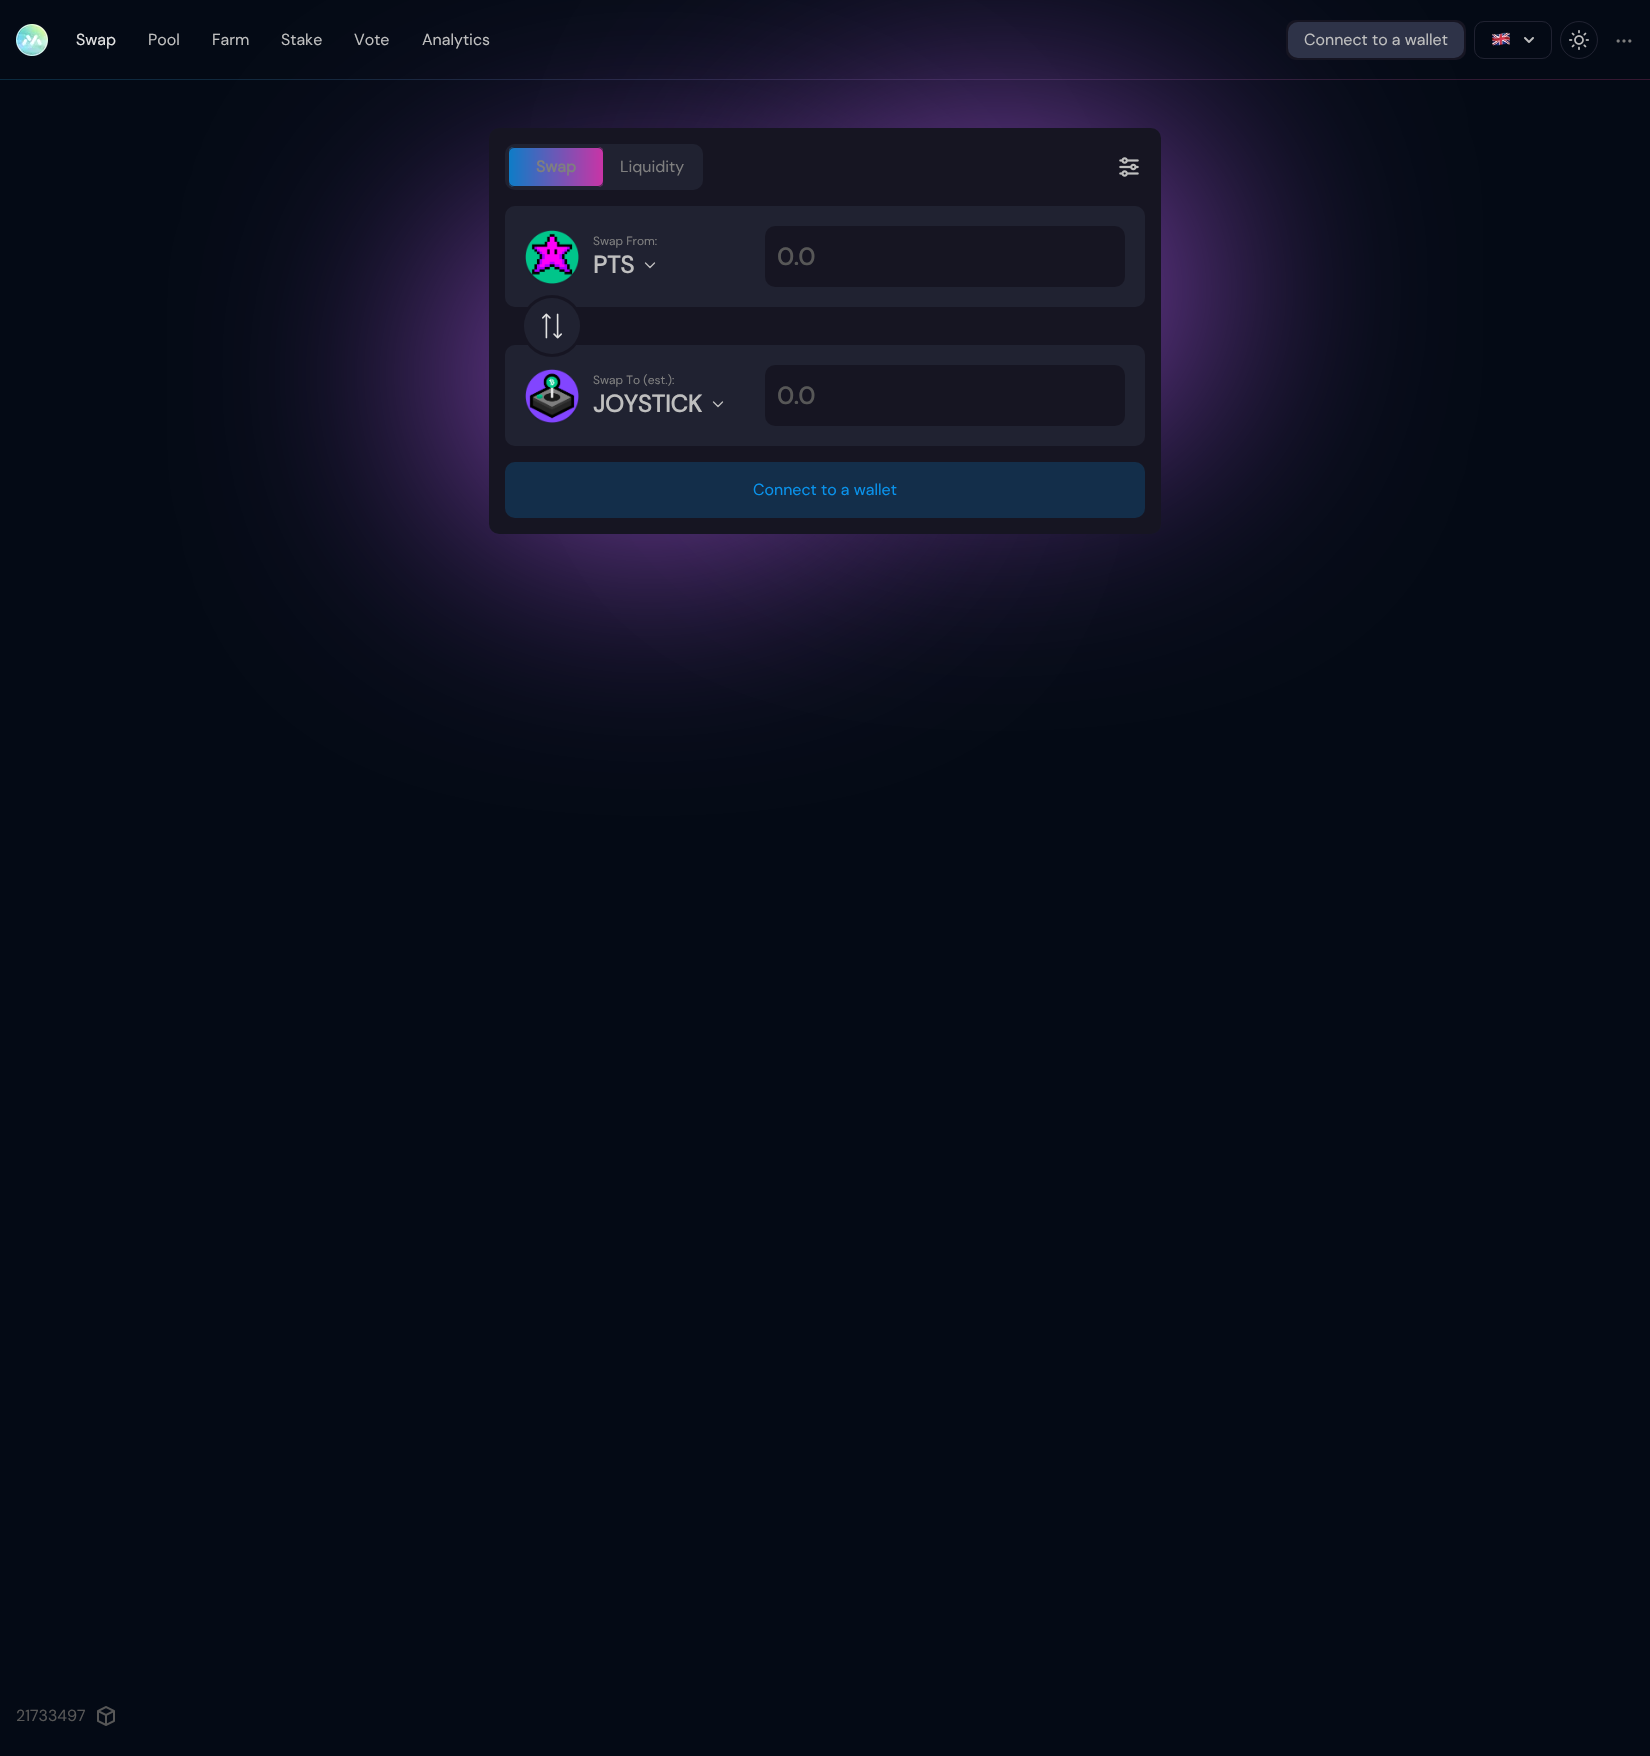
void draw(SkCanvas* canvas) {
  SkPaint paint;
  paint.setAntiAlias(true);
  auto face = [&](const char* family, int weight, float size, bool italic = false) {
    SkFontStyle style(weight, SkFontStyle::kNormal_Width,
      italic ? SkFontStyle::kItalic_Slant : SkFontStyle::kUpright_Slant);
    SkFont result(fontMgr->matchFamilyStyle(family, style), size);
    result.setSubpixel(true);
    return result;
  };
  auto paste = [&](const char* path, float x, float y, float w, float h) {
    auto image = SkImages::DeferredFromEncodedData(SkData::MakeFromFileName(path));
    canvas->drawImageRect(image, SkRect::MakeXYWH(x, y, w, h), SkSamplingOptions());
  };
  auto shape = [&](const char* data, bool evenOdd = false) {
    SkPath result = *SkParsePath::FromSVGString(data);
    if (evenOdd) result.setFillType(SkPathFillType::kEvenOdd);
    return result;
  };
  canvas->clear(0xff040a15);
  {
    const SkColor colors[] = {0xff0b2b3f, 0xff351831};
    const float stops[] = {0, 1};
    const SkPoint ends[] = {{0, 80}, {1650, 79}};
    paint.setShader(SkGradientShader::MakeLinear(ends, colors, stops, 2, SkTileMode::kClamp));
    paint.setAlpha(255);
  }
  canvas->drawRect(SkRect::MakeXYWH(0, 79, 1650, 1), paint);
  paste("img/1.png", 16, 24, 32, 32);
  paint.setShader(nullptr);
  paint.setColor(0xffa755dd);
  paint.setMaskFilter(SkMaskFilter::MakeBlur(kNormal_SkBlurStyle, 150));
  canvas->drawRoundRect(SkRect::MakeXYWH(449, 230, 403, 288), 144, 144, paint);
  paint.setMaskFilter(nullptr);
  paint.setMaskFilter(SkMaskFilter::MakeBlur(kNormal_SkBlurStyle, 150));
  canvas->drawRoundRect(SkRect::MakeXYWH(798, 144, 403, 289), 144.5f, 144.5f, paint);
  paint.setMaskFilter(nullptr);
  paint.setColor(0xff161522);
  canvas->drawRoundRect(SkRect::MakeXYWH(1286, 20, 180, 40), 10, 10, paint);
  paint.setColor(0xff2e3348);
  canvas->drawRoundRect(SkRect::MakeXYWH(1288, 22, 176, 36), 10, 10, paint);
  paint.setStroke(true);
  paint.setStrokeWidth(1);
  paint.setColor(0xff202231);
  canvas->drawRoundRect(SkRect::MakeXYWH(1474.5f, 21.5f, 77, 37), 9.5f, 9.5f, paint);
  paste("img/2.png", 1492, 32, 18, 14);
  paste("img/3.png", 1524, 37, 10, 6);
  canvas->drawCircle(1579, 40, 18.5f, paint);
  paste("img/4.png", 1569, 30, 20, 20);
  paste("img/5.png", 1616, 39, 16, 4);
  paint.setStroke(false);
  paint.setColor(0xff161522);
  canvas->drawRoundRect(SkRect::MakeXYWH(489, 128, 672, 406), 10, 10, paint);
  paint.setColor(0xff202231);
  canvas->drawRoundRect(SkRect::MakeXYWH(505, 144, 198, 46), 10, 10, paint);
  canvas->save();
  canvas->clipPath(shape("M514 147H598C601.5 147 604 149.5 604 153V181C604 184.5 601.5 187 598 187H514C510.5 187 508 184.5 508 181V153C508 149.5 510.5 147 514 147Z"), true);
  {
    const SkColor colors[] = {0xff0e7cc7, 0xffc934a6};
    const float stops[] = {0, 1};
    const SkPoint ends[] = {{509, 167}, {603, 167}};
    paint.setShader(SkGradientShader::MakeLinear(ends, colors, stops, 2, SkTileMode::kClamp));
    paint.setAlpha(255);
  }
  canvas->drawRect(SkRect::MakeXYWH(509, 147, 94, 40), paint);
  canvas->restore();
  paint.setStroke(true);
  paint.setShader(nullptr);
  paint.setColor(0xff202231);
  canvas->drawRoundRect(SkRect::MakeXYWH(508.5f, 147.5f, 95, 39), 5.5f, 5.5f, paint);
  paste("img/6.png", 1119, 157, 20, 20);
  paint.setStroke(false);
  canvas->drawRoundRect(SkRect::MakeXYWH(505, 206, 640, 101), 10, 10, paint);
  paste("img/7.png", 525, 230, 54, 54);
  paint.setStroke(true);
  paint.setStrokeWidth(1.3f);
  paint.setStrokeCap(SkPaint::kRound_Cap);
  paint.setStrokeJoin(SkPaint::kRound_Join);
  paint.setColor(0xffbfbfbf);
  canvas->drawPath(shape("M654.5 263L650 267.5L645.5 263"), paint);
  paint.setStroke(false);
  paint.setColor(0xff161522);
  canvas->drawRoundRect(SkRect::MakeXYWH(765, 226, 360, 61), 10, 10, paint);
  paint.setColor(0xff202231);
  canvas->drawRoundRect(SkRect::MakeXYWH(505, 345, 640, 101), 10, 10, paint);
  paint.setColor(0xff161522);
  canvas->drawCircle(552, 326, 31, paint);
  paint.setColor(0xff202231);
  canvas->drawCircle(552, 326, 28, paint);
  paste("img/8.png", 542, 313, 20, 26);
  paste("img/9.png", 525, 369, 54, 54);
  paint.setStroke(true);
  paint.setColor(0xffbfbfbf);
  canvas->drawPath(shape("M722.5 402L718 406.5L713.5 402"), paint);
  paint.setStroke(false);
  paint.setColor(0xff161522);
  canvas->drawRoundRect(SkRect::MakeXYWH(765, 365, 360, 61), 10, 10, paint);
  paint.setColor(0xff132e4a);
  canvas->drawRoundRect(SkRect::MakeXYWH(505, 462, 640, 56), 10, 10, paint);
  paste("img/10.png", 97, 1706, 18, 20);
  auto f0 = face("DM Sans", 400, 16);
  paint.setColor(0xffe3e3e3);
  canvas->drawString("Swap", 76, 45, f0, paint);
  paint.setColor(0xffbfbfbf);
  {
    const struct { const char* s; float x, y; } items[] = {
      {"Pool", 148, 45},
      {"Farm", 212, 45},
      {"Stake", 281, 45},
      {"Vote", 354, 45},
      {"Analytics", 422, 45},
      {"Connect to a wallet", 1304, 45},
    };
    for (auto [s, x, y] : items) {
      canvas->drawString(s, x, y, f0, paint);
    }
  }
  auto f1 = face("DM Sans", 700, 16);
  paint.setColor(0xff7f7f7f);
  canvas->drawString("Swap", 536, 172, f1, paint);
  canvas->drawString("Liquidity", 620, 172, f0, paint);
  auto f2 = face("DM Sans", 400, 12);
  canvas->drawString("Swap From:", 593, 245, f2, paint);
  auto f3 = face("DM Sans", 700, 24);
  paint.setColor(0xffbfbfbf);
  canvas->drawString("PTS", 593, 273, f3, paint);
  paint.setColor(0xff575757);
  canvas->drawString("0.0", 777, 265, f3, paint);
  paint.setColor(0xff7f7f7f);
  canvas->drawString("Swap To (est.):", 593, 384, f2, paint);
  paint.setColor(0xffbfbfbf);
  canvas->drawString("JOYSTICK", 593, 412, f3, paint);
  paint.setColor(0xff575757);
  canvas->drawString("0.0", 777, 404, f3, paint);
  paint.setColor(0xff0993ec);
  canvas->drawString("Connect to a wallet", 753, 495, f0, paint);
  paint.setColor(0xff575757);
  canvas->drawString("21733497", 16, 1721, f0, paint);
}
